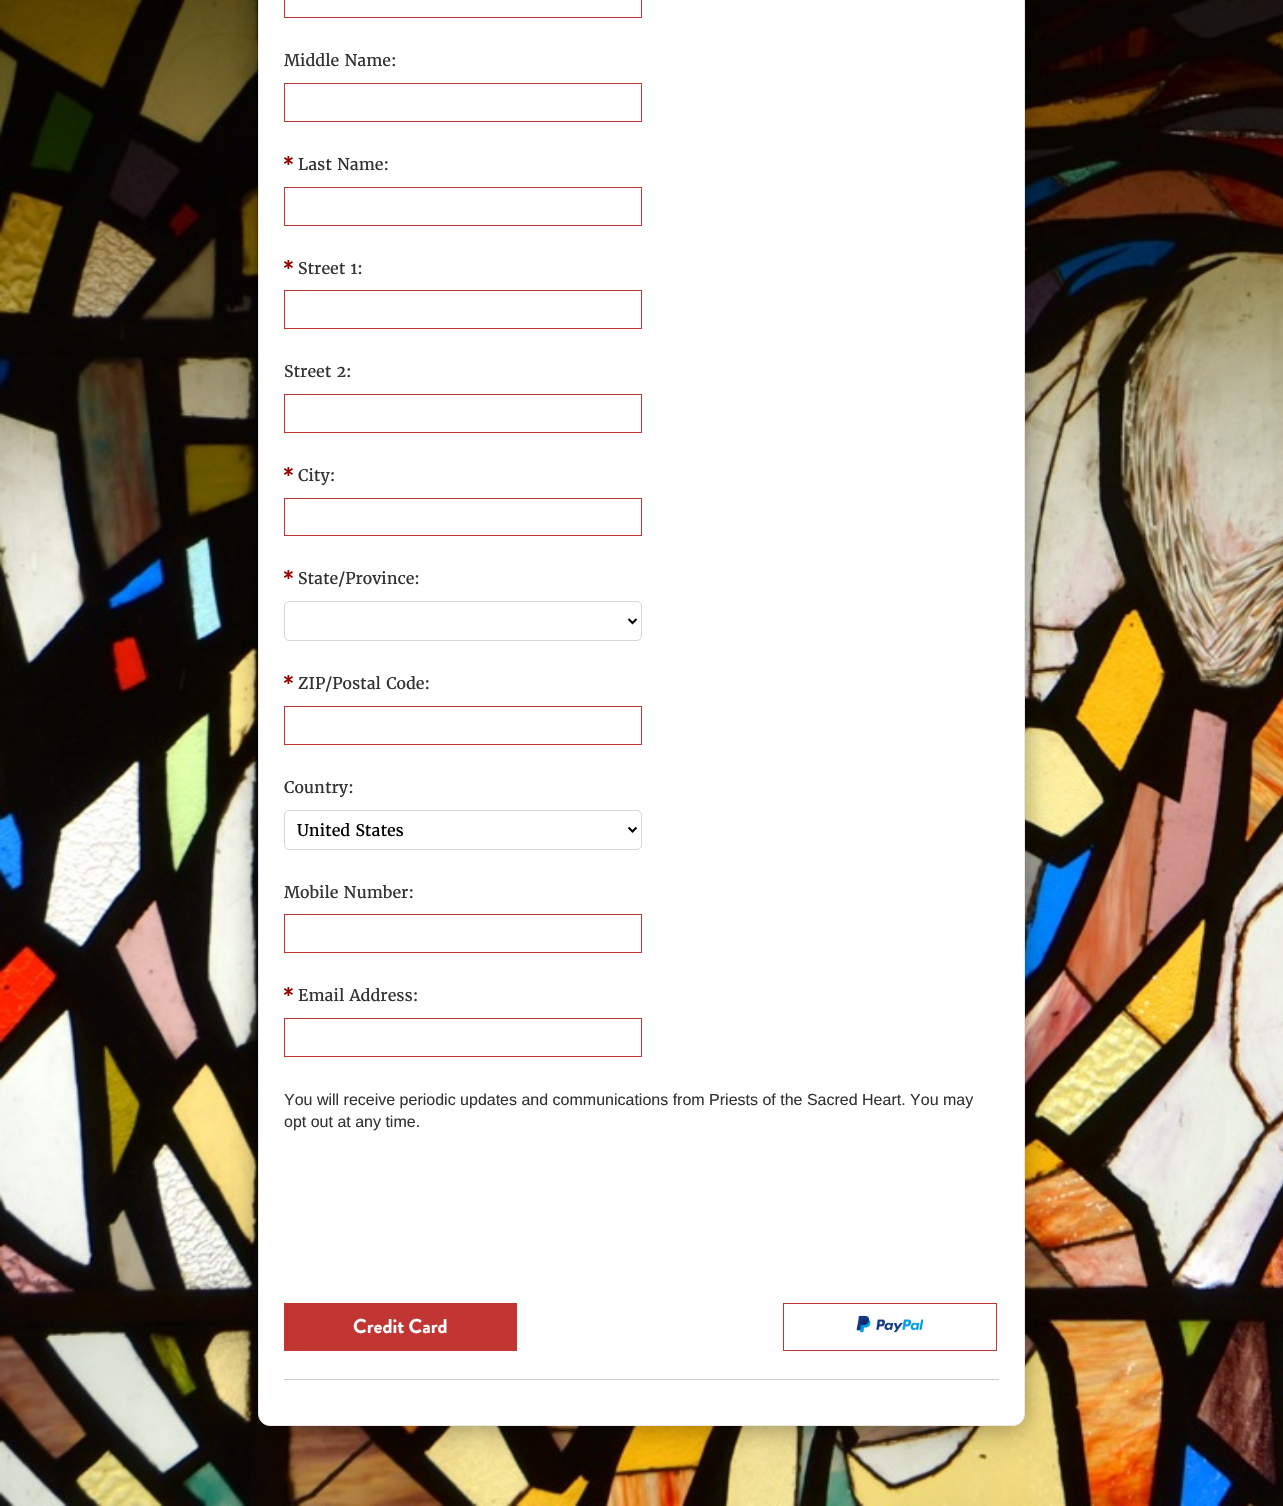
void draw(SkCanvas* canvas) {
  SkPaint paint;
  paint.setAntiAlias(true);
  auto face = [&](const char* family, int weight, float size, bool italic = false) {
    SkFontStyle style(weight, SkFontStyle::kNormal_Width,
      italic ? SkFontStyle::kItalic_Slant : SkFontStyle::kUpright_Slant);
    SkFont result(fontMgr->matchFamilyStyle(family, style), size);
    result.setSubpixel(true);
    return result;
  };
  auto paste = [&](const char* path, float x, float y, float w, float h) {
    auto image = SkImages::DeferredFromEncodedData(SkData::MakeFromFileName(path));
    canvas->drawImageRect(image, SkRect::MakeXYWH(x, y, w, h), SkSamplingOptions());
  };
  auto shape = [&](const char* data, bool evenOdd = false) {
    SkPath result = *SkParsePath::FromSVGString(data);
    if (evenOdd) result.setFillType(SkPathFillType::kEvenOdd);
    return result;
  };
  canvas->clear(0xffffffff);
  paste("img/1.png", 0, 0, 1283, 1506);
  paint.setColor(0x30000000);
  paint.setMaskFilter(SkMaskFilter::MakeBlur(kNormal_SkBlurStyle, 15));
  canvas->drawRoundRect(SkRect::MakeXYWH(258, -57, 767, 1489), 12, 12, paint);
  paint.setMaskFilter(nullptr);
  paint.setColor(0x33000000);
  paint.setMaskFilter(SkMaskFilter::MakeBlur(kNormal_SkBlurStyle, 12));
  canvas->drawRoundRect(SkRect::MakeXYWH(258, -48, 767, 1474), 12, 12, paint);
  paint.setMaskFilter(nullptr);
  paint.setColor(0xffffffff);
  canvas->drawRoundRect(SkRect::MakeXYWH(258.5f, -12.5f, 766, 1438), 11.5f, 11.5f, paint);
  paint.setStroke(true);
  paint.setStrokeWidth(1);
  paint.setColor(0xffeaeaea);
  canvas->drawRoundRect(SkRect::MakeXYWH(258.5f, -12.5f, 766, 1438), 11.5f, 11.5f, paint);
  paint.setColor(0xffc13533);
  canvas->drawRect(SkRect::MakeXYWH(284.5f, -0.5f, 357, 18), paint);
  canvas->drawRect(SkRect::MakeXYWH(284.5f, 83.5f, 357, 38), paint);
  paste("img/2.png", 284, 156, 9, 9);
  canvas->drawRect(SkRect::MakeXYWH(284.5f, 187.5f, 357, 38), paint);
  paste("img/2.png", 284, 260, 9, 9);
  canvas->drawRect(SkRect::MakeXYWH(284.5f, 290.5f, 357, 38), paint);
  canvas->drawRect(SkRect::MakeXYWH(284.5f, 394.5f, 357, 38), paint);
  paste("img/2.png", 284, 467, 9, 9);
  canvas->drawRect(SkRect::MakeXYWH(284.5f, 498.5f, 357, 37), paint);
  paste("img/2.png", 284, 570, 9, 9);
  paint.setColor(0xffd9d6cf);
  canvas->drawRoundRect(SkRect::MakeXYWH(284.5f, 601.5f, 357, 39), 4.5f, 4.5f, paint);
  paint.setStrokeWidth(2);
  paint.setColor(0xff000000);
  canvas->drawPath(shape("M628.5 619L632.5 623L636.5 619"), paint);
  paste("img/2.png", 284, 675, 9, 9);
  paint.setStrokeWidth(1);
  paint.setColor(0xffc13533);
  canvas->drawRect(SkRect::MakeXYWH(284.5f, 706.5f, 357, 38), paint);
  paint.setColor(0xffd9d6cf);
  canvas->drawRoundRect(SkRect::MakeXYWH(284.5f, 810.5f, 357, 39), 4.5f, 4.5f, paint);
  paint.setStrokeWidth(2);
  paint.setColor(0xff000000);
  canvas->drawPath(shape("M628.5 827.5L632.5 831.5L636.5 827.5"), paint);
  paint.setStrokeWidth(1);
  paint.setColor(0xffc13533);
  canvas->drawRect(SkRect::MakeXYWH(284.5f, 914.5f, 357, 38), paint);
  paste("img/2.png", 284, 987, 9, 9);
  canvas->drawRect(SkRect::MakeXYWH(284.5f, 1018.5f, 357, 38), paint);
  paint.setStroke(false);
  canvas->drawRect(SkRect::MakeXYWH(284, 1303, 233, 48), paint);
  paint.setStroke(true);
  canvas->drawRect(SkRect::MakeXYWH(783.5f, 1303.5f, 213, 47), paint);
  paste("img/3.png", 856, 1315, 68, 18);
  paint.setStroke(false);
  paint.setColor(0xffcccccc);
  canvas->drawRect(SkRect::MakeXYWH(284, 1379, 715, 1), paint);
  auto f0 = face("Merriweather", 400, 16);
  paint.setColor(0xff333333);
  {
    const struct { const char* s; float x, y; } items[] = {
      {"Middle Name:", 284, 66},
      {"Last Name:", 298, 170},
      {"Street 1:", 298, 274},
      {"Street 2:", 284, 377},
      {"City:", 298, 481},
      {"State/Province:", 298, 584},
      {"ZIP/Postal Code:", 298, 689},
      {"Country:", 284, 793},
    };
    for (auto [s, x, y] : items) {
      canvas->drawString(s, x, y, f0, paint);
    }
  }
  paint.setColor(0xff000000);
  canvas->drawString("United States", 297, 836, f0, paint);
  paint.setColor(0xff333333);
  canvas->drawString("Mobile Number:", 284, 898, f0, paint);
  canvas->drawString("Email Address:", 298, 1001, f0, paint);
  auto f1 = face("Liberation Sans", 400, 16);
  canvas->drawString("You will receive periodic updates and communications from Priests of the Sacred Heart. You may", 284, 1105, f1, paint);
  canvas->drawString("opt out at any time.", 284, 1127, f1, paint);
  auto f2 = face("Brandon Grotesque", 700, 20);
  paint.setColor(0xffffffff);
  canvas->drawString("Credit Card", 353, 1333, f2, paint);
}
